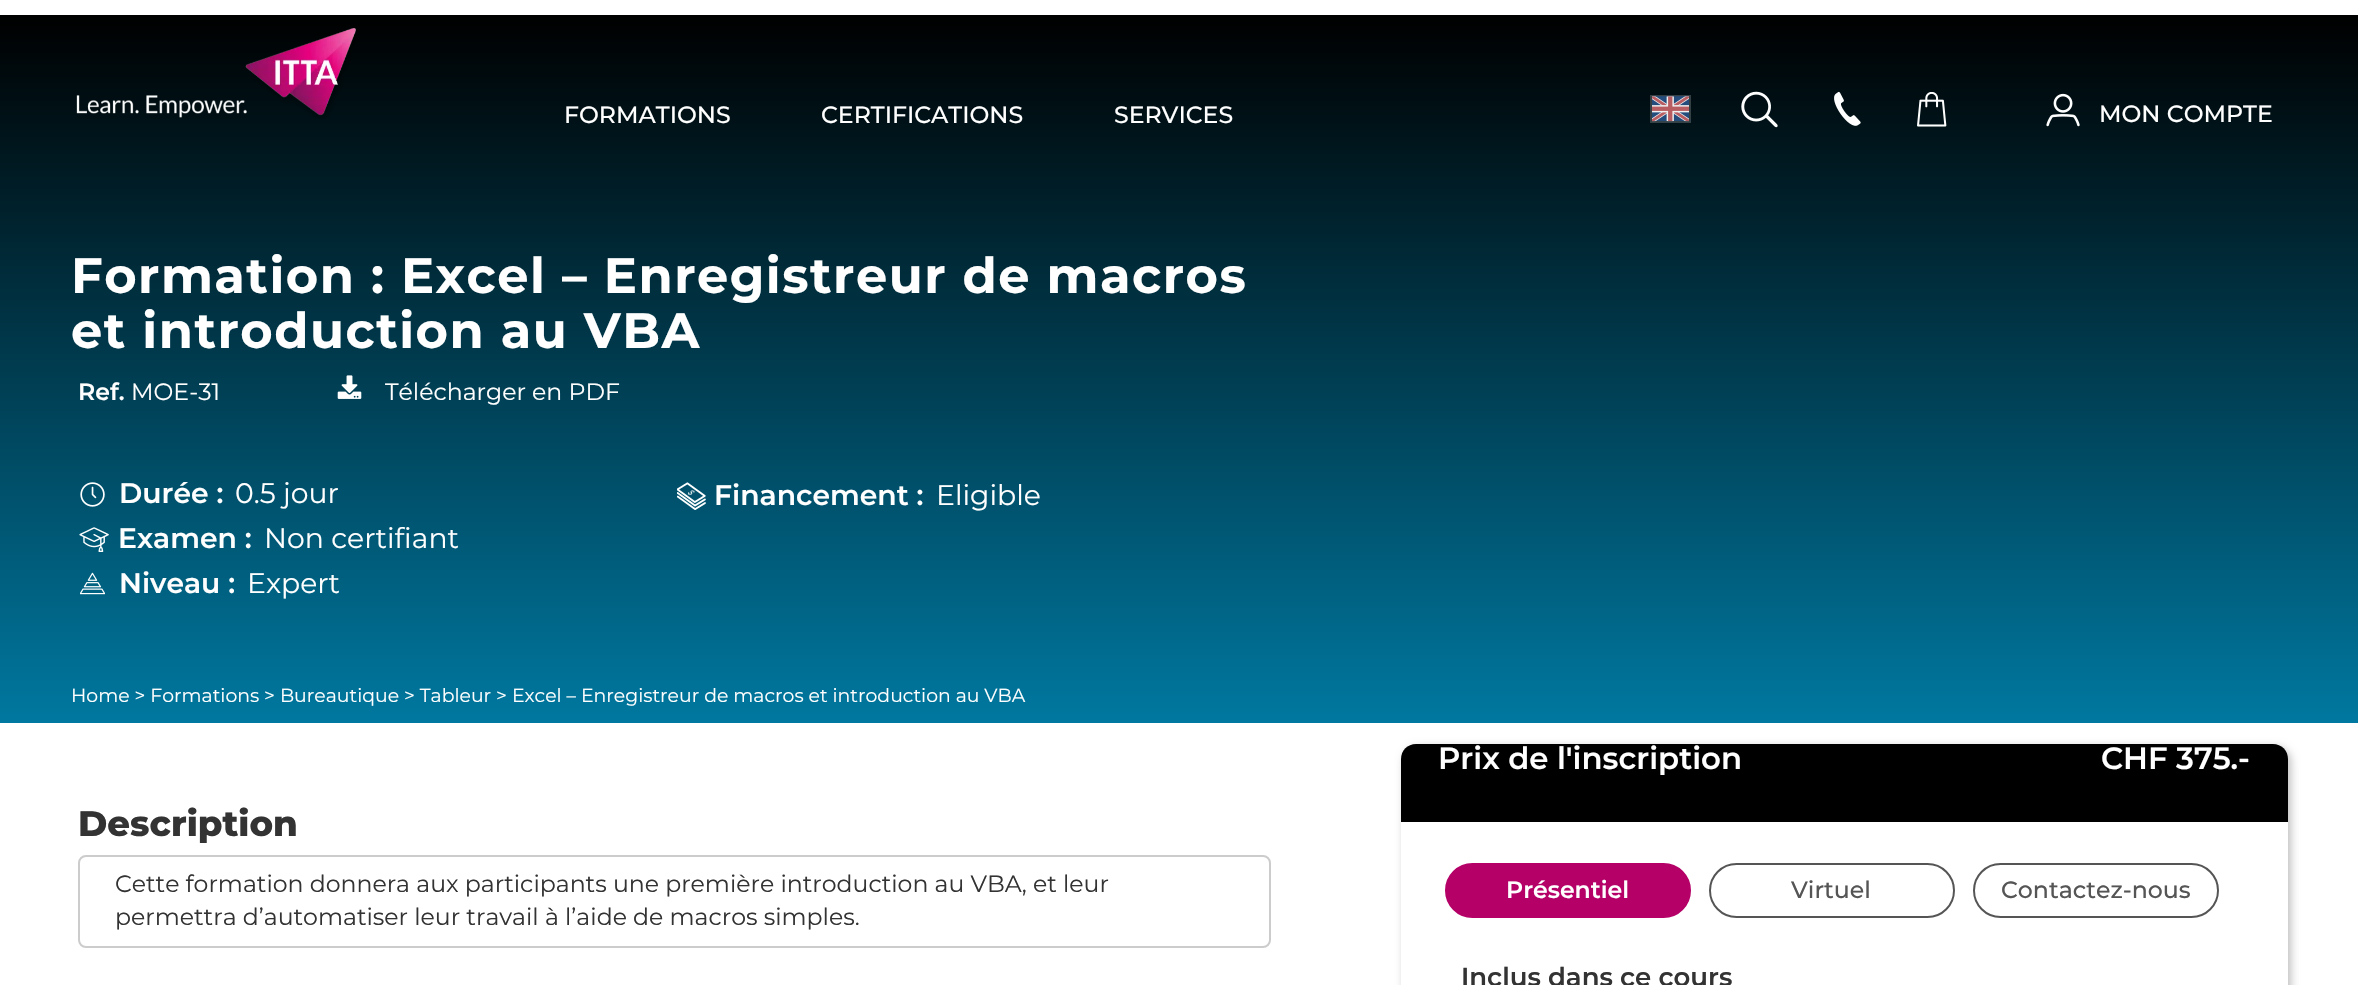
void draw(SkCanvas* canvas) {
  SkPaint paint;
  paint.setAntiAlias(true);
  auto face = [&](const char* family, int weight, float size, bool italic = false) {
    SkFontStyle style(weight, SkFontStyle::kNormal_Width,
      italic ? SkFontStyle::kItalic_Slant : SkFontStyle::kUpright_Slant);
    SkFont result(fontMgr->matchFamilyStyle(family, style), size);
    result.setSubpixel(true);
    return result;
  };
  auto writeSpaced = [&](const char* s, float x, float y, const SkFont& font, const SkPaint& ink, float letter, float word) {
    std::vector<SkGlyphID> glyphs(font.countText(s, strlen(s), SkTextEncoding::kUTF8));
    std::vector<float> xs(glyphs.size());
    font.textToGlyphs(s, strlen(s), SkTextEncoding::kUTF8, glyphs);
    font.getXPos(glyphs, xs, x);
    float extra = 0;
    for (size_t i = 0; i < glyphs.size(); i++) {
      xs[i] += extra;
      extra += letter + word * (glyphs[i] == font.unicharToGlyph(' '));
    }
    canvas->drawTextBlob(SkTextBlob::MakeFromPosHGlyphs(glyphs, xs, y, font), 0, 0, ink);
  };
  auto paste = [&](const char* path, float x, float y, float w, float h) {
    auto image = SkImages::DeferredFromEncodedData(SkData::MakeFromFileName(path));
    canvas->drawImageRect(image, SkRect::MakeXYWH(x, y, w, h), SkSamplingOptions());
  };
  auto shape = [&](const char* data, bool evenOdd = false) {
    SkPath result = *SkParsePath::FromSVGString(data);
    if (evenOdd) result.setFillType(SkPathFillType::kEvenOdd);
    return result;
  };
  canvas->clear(0xffffffff);
  {
    const SkColor colors[] = {0xff0078a0, 0xff000000};
    const float stops[] = {0, 1};
    const SkPoint ends[] = {{1179, 723}, {1179, 15}};
    paint.setShader(SkGradientShader::MakeLinear(ends, colors, stops, 2, SkTileMode::kClamp));
    paint.setAlpha(255);
  }
  canvas->drawRect(SkRect::MakeXYWH(0, 15, 2358, 708), paint);
  paste("img/1.png", 76, 28, 280, 91);
  paint.setStroke(true);
  paint.setStrokeWidth(2);
  paint.setShader(nullptr);
  paint.setColor(0x33ffffff);
  canvas->drawRect(SkRect::MakeXYWH(1651, 96, 39, 26), paint);
  paste("img/2.png", 1652, 96, 37, 26);
  paste("img/3.png", 1741, 91, 37, 37);
  paste("img/4.png", 1834, 91, 27, 35);
  paste("img/5.png", 1917, 92, 30, 35);
  paste("img/6.png", 2046, 93, 34, 34);
  paste("img/7.png", 337, 375, 25, 24);
  paste("img/8.png", 80, 482, 25, 25);
  paste("img/9.png", 79, 527, 30, 25);
  paste("img/10.png", 80, 572, 25, 23);
  paste("img/11.png", 677, 482, 29, 28);
  paint.setColor(0xffcccccc);
  canvas->drawRoundRect(SkRect::MakeXYWH(79, 856, 1191, 91), 7, 7, paint);
  paint.setStroke(false);
  paint.setColor(0x40000000);
  paint.setMaskFilter(SkMaskFilter::MakeBlur(kNormal_SkBlurStyle, 4));
  canvas->drawRoundRect(SkRect::MakeXYWH(1404, 747, 887, 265), 15, 15, paint);
  paint.setMaskFilter(nullptr);
  paint.setColor(0xffffffff);
  canvas->drawRoundRect(SkRect::MakeXYWH(1401, 744, 887, 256), 15, 15, paint);
  paint.setColor(0xff000000);
  canvas->drawPath(shape("M1416 744H2273C2281.5 744 2288 750.5 2288 759V822H1401V759C1401 750.5 1407.5 744 1416 744Z"), paint);
  paint.setColor(0xffb40067);
  canvas->drawRoundRect(SkRect::MakeXYWH(1446, 864, 244, 53), 26.5f, 26.5f, paint);
  paint.setStroke(true);
  canvas->drawRoundRect(SkRect::MakeXYWH(1446, 864, 244, 53), 26.5f, 26.5f, paint);
  paint.setColor(0xff555555);
  canvas->drawRoundRect(SkRect::MakeXYWH(1710, 864, 244, 53), 26.5f, 26.5f, paint);
  canvas->drawRoundRect(SkRect::MakeXYWH(1974, 864, 244, 53), 26.5f, 26.5f, paint);
  auto f0 = face("Montserrat", 500, 23.6f);
  paint.setStroke(false);
  paint.setColor(0xffffffff);
  {
    const struct { const char* s; float x, y; } items[] = {
      {"FORMATIONS", 564, 123},
      {"CERTIFICATIONS", 821, 123},
      {"SERVICES", 1114, 123},
      {"MON COMPTE", 2099, 122},
    };
    for (auto [s, x, y] : items) {
      canvas->drawString(s, x, y, f0, paint);
    }
  }
  auto f1 = face("Montserrat", 700, 49.5f);
  writeSpaced("Formation : Excel – Enregistreur de macros", 71, 293, f1, paint, 1.5f, 0);
  writeSpaced("et introduction au VBA", 71, 348, f1, paint, 1.5f, 0);
  auto f2 = face("Montserrat", 600, 23.6f);
  canvas->drawString("Ref.", 78, 400, f2, paint);
  auto f3 = face("Montserrat", 400, 23.6f);
  canvas->drawString("MOE-31", 131, 400, f3, paint);
  canvas->drawString("Télécharger en PDF", 385, 400, f3, paint);
  auto f4 = face("Montserrat", 600, 28.25f);
  canvas->drawString("Durée :", 119, 503, f4, paint);
  auto f5 = face("Montserrat", 400, 28.25f);
  canvas->drawString("0.5 jour", 235, 503, f5, paint);
  canvas->drawString("Examen :", 118, 548, f4, paint);
  canvas->drawString("Non certifiant", 264, 548, f5, paint);
  canvas->drawString("Niveau :", 119, 593, f4, paint);
  canvas->drawString("Expert", 247, 593, f5, paint);
  canvas->drawString("Financement :", 714, 505, f4, paint);
  canvas->drawString("Eligible", 936, 505, f5, paint);
  auto f6 = face("Montserrat", 400, 18.85f);
  canvas->drawString("Home > Formations > Bureautique > Tableur > Excel – Enregistreur de macros et introduction au VBA", 71, 702, f6, paint);
  auto f7 = face("Montserrat", 800, 35.5f);
  paint.setColor(0xff333333);
  canvas->drawString("Description", 78, 836, f7, paint);
  canvas->drawString("Cette formation donnera aux participants une première introduction au VBA, et leur", 115, 892, f3, paint);
  canvas->drawString("permettra d’automatiser leur travail à l’aide de macros simples.", 115, 925, f3, paint);
  auto f8 = face("Montserrat", 600, 30.75f);
  paint.setColor(0xffffffff);
  canvas->drawString("Prix de l'inscription", 1438, 769, f8, paint);
  canvas->drawString("CHF 375.-", 2101, 769, f8, paint);
  canvas->drawString("Présentiel", 1506, 898, f2, paint);
  paint.setColor(0xff555555);
  canvas->drawString("Virtuel", 1791, 898, f0, paint);
  canvas->drawString("Contactez-nous", 2001, 898, f0, paint);
  auto f9 = face("Montserrat", 600, 26);
  paint.setColor(0xff333333);
  canvas->drawString("Inclus dans ce cours", 1461, 986, f9, paint);
}
